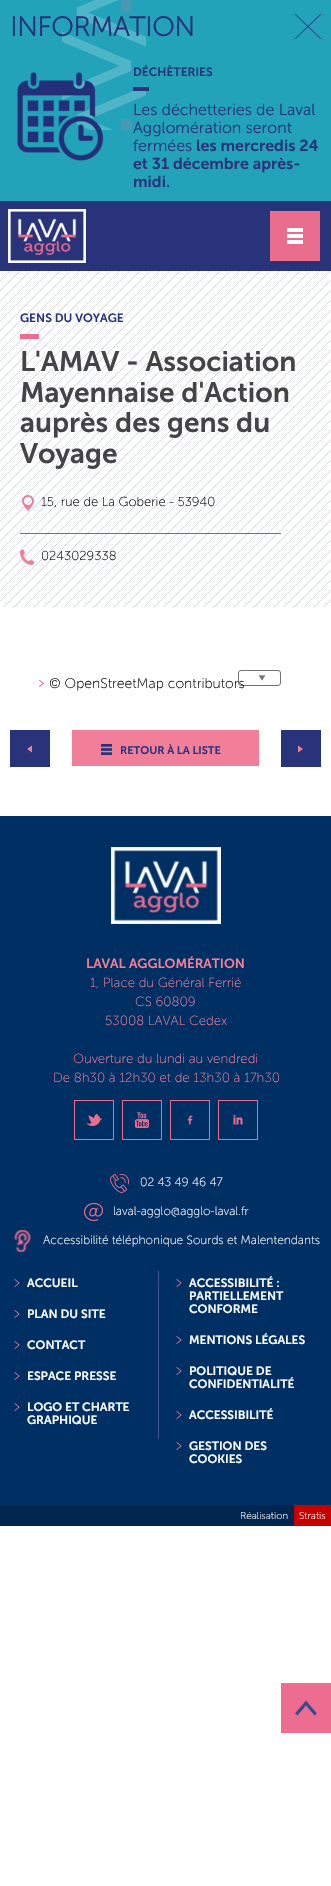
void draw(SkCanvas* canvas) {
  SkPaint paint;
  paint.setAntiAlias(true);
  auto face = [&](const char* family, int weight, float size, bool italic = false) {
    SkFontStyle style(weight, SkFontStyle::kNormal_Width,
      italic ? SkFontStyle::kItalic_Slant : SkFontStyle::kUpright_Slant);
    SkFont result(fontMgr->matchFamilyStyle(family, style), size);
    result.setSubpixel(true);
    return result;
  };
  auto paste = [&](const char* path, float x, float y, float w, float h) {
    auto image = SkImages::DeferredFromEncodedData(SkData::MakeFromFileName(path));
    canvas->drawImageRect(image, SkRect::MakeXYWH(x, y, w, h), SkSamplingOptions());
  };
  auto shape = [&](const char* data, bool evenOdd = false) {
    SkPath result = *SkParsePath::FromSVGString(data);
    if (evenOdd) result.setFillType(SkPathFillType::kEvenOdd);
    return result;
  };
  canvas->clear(0xffffffff);
  paint.setColor(0xff22a3ba);
  canvas->drawRect(SkRect::MakeXYWH(0, 0, 331, 201), paint);
  paste("img/1.png", 62, 0, 84, 130);
  paste("img/2.png", 295, 14, 26, 25);
  paste("img/3.png", 17, 72, 87, 89);
  paint.setColor(0xff28337a);
  canvas->drawRect(SkRect::MakeXYWH(133, 87, 16, 4), paint);
  canvas->drawRect(SkRect::MakeXYWH(0, 201, 331, 70), paint);
  paste("img/4.png", 8, 209, 78, 54);
  paste("img/5.png", 270, 211, 50, 50);
  paste("img/6.png", 0, 271, 331, 336);
  paint.setColor(0xffed6d91);
  canvas->drawRect(SkRect::MakeXYWH(20, 334, 19, 5), paint);
  paste("img/7.png", 22, 495, 12, 16);
  paint.setColor(0xff727272);
  canvas->drawRect(SkRect::MakeXYWH(20, 533, 261, 1), paint);
  paste("img/8.png", 20, 549, 15, 16);
  paste("img/9.png", 39, 679, 6, 8);
  paste("img/10.png", 258, 675, 8, 6);
  paint.setStroke(true);
  paint.setStrokeWidth(1);
  canvas->drawRoundRect(SkRect::MakeXYWH(238.5f, 670.5f, 42, 15), 2.5f, 2.5f, paint);
  paint.setStroke(false);
  paint.setColor(0xff28337a);
  canvas->drawRect(SkRect::MakeXYWH(10, 730, 40, 37), paint);
  paint.setColor(0xfff17f9a);
  canvas->drawPath(shape("M27 749L32 745.5V752.5Z"), paint);
  canvas->drawRect(SkRect::MakeXYWH(72, 730, 187, 36), paint);
  paste("img/11.png", 101, 744, 11, 11);
  paint.setColor(0xff28337a);
  canvas->drawRect(SkRect::MakeXYWH(281, 730, 40, 37), paint);
  paint.setColor(0xfff17f9a);
  canvas->drawPath(shape("M298 745.5L303 749L298 752.5Z"), paint);
  paint.setColor(0xff002f64);
  canvas->drawRect(SkRect::MakeXYWH(0, 816, 331, 689), paint);
  paste("img/12.png", 111, 847, 110, 77);
  paint.setStroke(true);
  paint.setColor(0xffed6d91);
  canvas->drawRect(SkRect::MakeXYWH(74.5f, 1100.5f, 39, 39), paint);
  paste("img/13.png", 86, 1114, 16, 12);
  canvas->drawRect(SkRect::MakeXYWH(122.5f, 1100.5f, 39, 39), paint);
  paste("img/14.png", 135, 1112, 14, 16);
  canvas->drawRect(SkRect::MakeXYWH(170.5f, 1100.5f, 39, 39), paint);
  paste("img/15.png", 187, 1115, 6, 10);
  canvas->drawRect(SkRect::MakeXYWH(218.5f, 1100.5f, 39, 39), paint);
  paste("img/16.png", 233, 1114, 10, 11);
  paste("img/17.png", 110, 1174, 19, 19);
  paste("img/18.png", 84, 1203, 19, 18);
  paste("img/19.png", 14, 1230, 18, 22);
  paint.setStroke(false);
  paint.setColor(0xff48518e);
  canvas->drawRect(SkRect::MakeXYWH(158, 1271, 1, 168), paint);
  paste("img/20.png", 14, 1279, 6, 8);
  paste("img/20.png", 14, 1310, 6, 8);
  paste("img/20.png", 14, 1341, 6, 8);
  paste("img/20.png", 14, 1372, 6, 8);
  paste("img/20.png", 14, 1403, 6, 8);
  paste("img/20.png", 176, 1279, 6, 8);
  paste("img/20.png", 176, 1336, 6, 8);
  paste("img/20.png", 176, 1367, 6, 8);
  paste("img/20.png", 176, 1411, 6, 8);
  paste("img/20.png", 176, 1442, 6, 8);
  {
    const struct { float x, y, w, h; SkColor color; } items[] = {
      {0, 1505, 294, 21, 0xff002650},
      {294, 1505, 37, 21, 0xffc70000},
      {281, 1683, 50, 50, 0xffed6d91},
    };
    for (auto [x, y, w, h, color] : items) {
      paint.setColor(color);
      canvas->drawRect(SkRect::MakeXYWH(x, y, w, h), paint);
    }
  }
  paint.setColor(0xff3b4a8c);
  canvas->drawPath(shape("M306 1700.5L317 1713.5L314.5 1715.5L306 1705.5L297.5 1715.5L295 1713.5Z"), paint);
  auto f0 = face("Museo Sans", 700, 27);
  paint.setColor(0xff28337a);
  canvas->drawString("INFORMATION", 10, 36, f0, paint);
  auto f1 = face("Museo Sans", 600, 12);
  canvas->drawString("DÉCHÈTERIES", 133, 76, f1, paint);
  auto f2 = face("Museo Sans", 300, 16);
  {
    const struct { const char* s; float x, y; } items[] = {
      {"Les déchetteries de Laval", 133, 115},
      {"Agglomération seront", 133, 133},
      {"fermées", 133, 151},
    };
    for (auto [s, x, y] : items) {
      canvas->drawString(s, x, y, f2, paint);
    }
  }
  auto f3 = face("Museo Sans", 600, 16);
  {
    const struct { const char* s; float x, y; } items[] = {
      {"les mercredis 24", 196, 151},
      {"et 31 décembre après-", 133, 169},
      {"midi.", 133, 187},
    };
    for (auto [s, x, y] : items) {
      canvas->drawString(s, x, y, f3, paint);
    }
  }
  canvas->drawString("GENS DU VOYAGE", 20, 322, f1, paint);
  auto f4 = face("Museo Sans", 600, 28);
  paint.setColor(0xff444444);
  {
    const struct { const char* s; float x, y; } items[] = {
      {"L'AMAV - Association", 20, 371},
      {"Mayennaise d'Action", 20, 402},
      {"auprès des gens du", 20, 432},
      {"Voyage", 20, 463},
    };
    for (auto [s, x, y] : items) {
      canvas->drawString(s, x, y, f4, paint);
    }
  }
  auto f5 = face("Museo Sans", 200, 13);
  paint.setColor(0xff000000);
  canvas->drawString("15, rue de La Goberie - 53940", 41, 506, f5, paint);
  canvas->drawString("0243029338", 41, 560, f5, paint);
  auto f6 = face("Museo Sans", 200, 14);
  canvas->drawString("© OpenStreetMap contributors", 49, 688, f6, paint);
  auto f7 = face("Museo Sans", 600, 11);
  paint.setColor(0xff28337a);
  canvas->drawString("RETOUR À LA LISTE", 120, 754, f7, paint);
  auto f8 = face("Museo Sans", 600, 13.25f);
  paint.setColor(0xfff17f9a);
  canvas->drawString("LAVAL AGGLOMÉRATION", 86, 968, f8, paint);
  auto f9 = face("Museo Sans", 200, 13.25f);
  {
    const struct { const char* s; float x, y; } items[] = {
      {"1, Place du Général Ferrié", 90, 987},
      {"CS 60809", 135, 1006},
      {"53008 LAVAL Cedex", 105, 1025},
      {"Ouverture du lundi au vendredi", 73, 1063},
      {"De 8h30 à 12h30 et de 13h30 à 17h30", 53, 1082},
    };
    for (auto [s, x, y] : items) {
      canvas->drawString(s, x, y, f9, paint);
    }
  }
  auto f10 = face("Museo Sans", 200, 12);
  paint.setColor(0xffffffff);
  {
    const struct { const char* s; float x, y; } items[] = {
      {"02 43 49 46 47", 140, 1186},
      {"laval-agglo@agglo-laval.fr", 113, 1215},
      {"Accessibilité téléphonique Sourds et Malentendants", 43, 1244},
    };
    for (auto [s, x, y] : items) {
      canvas->drawString(s, x, y, f10, paint);
    }
  }
  {
    const struct { const char* s; float x, y; } items[] = {
      {"ACCUEIL", 27, 1287},
      {"PLAN DU SITE", 27, 1318},
      {"CONTACT", 27, 1349},
      {"ESPACE PRESSE", 27, 1380},
      {"LOGO ET CHARTE", 27, 1411},
      {"GRAPHIQUE", 27, 1424},
      {"ACCESSIBILITÉ :", 189, 1287},
      {"PARTIELLEMENT", 189, 1300},
      {"CONFORME", 189, 1313},
      {"MENTIONS LÉGALES", 189, 1344},
      {"POLITIQUE DE", 189, 1375},
      {"CONFIDENTIALITÉ", 189, 1388},
      {"ACCESSIBILITÉ", 189, 1419},
      {"GESTION DES", 189, 1450},
      {"COOKIES", 189, 1463},
    };
    for (auto [s, x, y] : items) {
      canvas->drawString(s, x, y, f1, paint);
    }
  }
  auto f11 = face("Museo Sans", 200, 10);
  canvas->drawString("Réalisation", 240, 1519, f11, paint);
  canvas->drawString("Stratis", 299, 1519, f11, paint);
}
